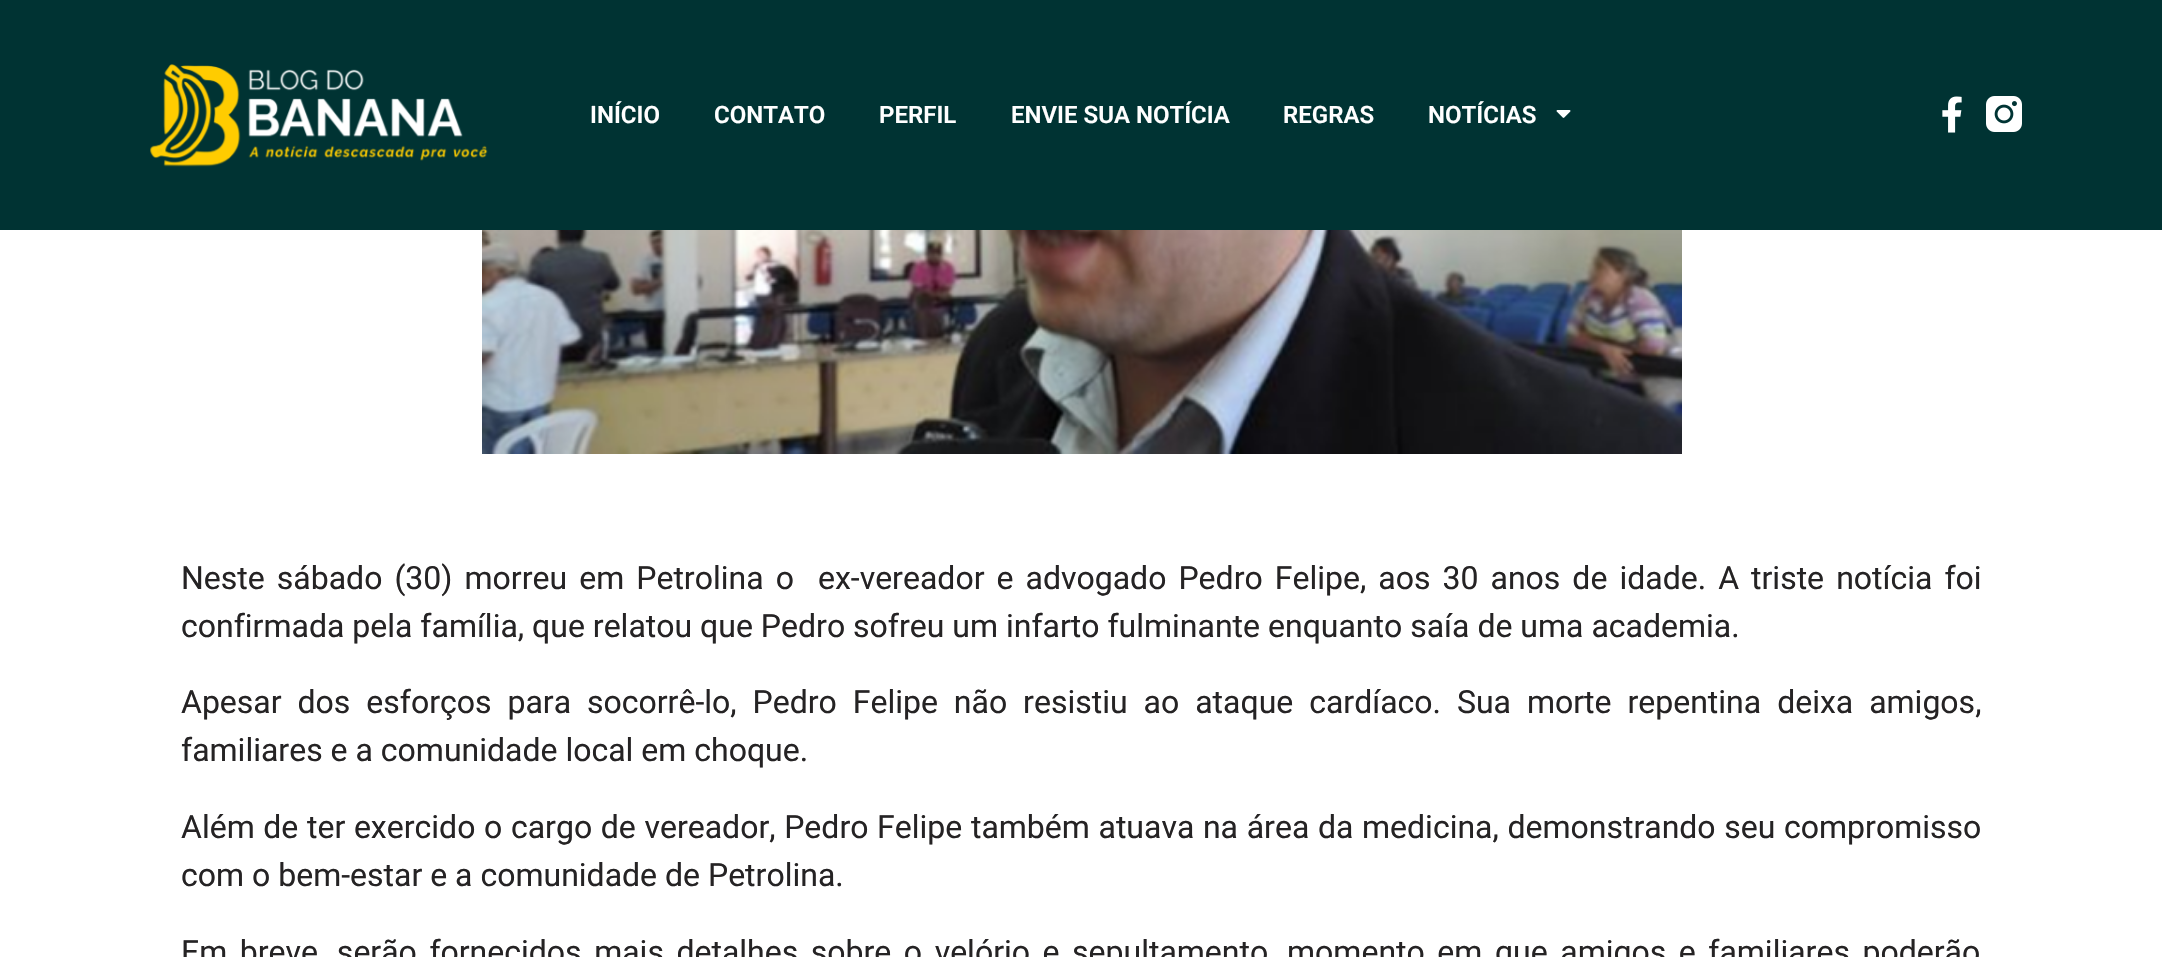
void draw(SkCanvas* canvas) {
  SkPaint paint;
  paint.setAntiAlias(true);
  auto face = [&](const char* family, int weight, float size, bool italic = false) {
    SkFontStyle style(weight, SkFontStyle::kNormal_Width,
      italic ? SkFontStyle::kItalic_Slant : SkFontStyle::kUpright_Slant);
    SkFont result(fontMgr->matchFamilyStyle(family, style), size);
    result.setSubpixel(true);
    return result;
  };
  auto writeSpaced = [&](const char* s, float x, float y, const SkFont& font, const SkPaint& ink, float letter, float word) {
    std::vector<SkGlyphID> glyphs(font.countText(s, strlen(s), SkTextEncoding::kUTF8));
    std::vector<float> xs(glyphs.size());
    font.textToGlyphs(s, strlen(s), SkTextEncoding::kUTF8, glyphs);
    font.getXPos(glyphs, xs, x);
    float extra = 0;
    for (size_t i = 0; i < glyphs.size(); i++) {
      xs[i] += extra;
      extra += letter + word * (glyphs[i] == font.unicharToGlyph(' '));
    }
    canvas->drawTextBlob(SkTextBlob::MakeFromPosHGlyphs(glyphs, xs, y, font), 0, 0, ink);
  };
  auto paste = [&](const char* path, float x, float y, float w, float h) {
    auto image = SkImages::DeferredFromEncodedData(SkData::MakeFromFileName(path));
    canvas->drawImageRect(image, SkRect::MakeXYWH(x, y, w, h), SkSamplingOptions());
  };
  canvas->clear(0xffffffff);
  paint.setColor(0xff003333);
  canvas->drawRect(SkRect::MakeXYWH(0, 0, 2162, 230), paint);
  paste("img/1.png", 150, 64, 338, 103);
  paste("img/2.png", 1556, 110, 15, 8);
  paste("img/3.png", 1942, 96, 20, 37);
  paste("img/4.png", 1986, 96, 36, 36);
  paste("img/5.png", 482, 230, 1200, 224);
  auto f0 = face("Roboto", 600, 24);
  paint.setColor(0xffffffff);
  {
    const struct { const char* s; float x, y; } items[] = {
      {"INÍCIO", 590, 123},
      {"CONTATO", 714, 123},
      {"PERFIL", 879, 123},
      {"ENVIE SUA NOTÍCIA", 1011, 123},
      {"REGRAS", 1283, 123},
      {"NOTÍCIAS", 1428, 123},
    };
    for (auto [s, x, y] : items) {
      canvas->drawString(s, x, y, f0, paint);
    }
  }
  auto f1 = face("Roboto", 400, 32);
  paint.setColor(0xff252324);
  writeSpaced("Neste sábado (30) morreu em Petrolina o  ex-vereador e advogado Pedro Felipe, aos 30 anos de idade. A triste notícia foi", 181, 589, f1, paint, 0, 4.1f);
  canvas->drawString("confirmada pela família, que relatou que Pedro sofreu um infarto fulminante enquanto saía de uma academia.", 181, 637, f1, paint);
  writeSpaced("Apesar dos esforços para socorrê-lo, Pedro Felipe não resistiu ao ataque cardíaco. Sua morte repentina deixa amigos,", 181, 713, f1, paint, 0, 8);
  canvas->drawString("familiares e a comunidade local em choque.", 181, 761, f1, paint);
  writeSpaced("Além de ter exercido o cargo de vereador, Pedro Felipe também atuava na área da medicina, demonstrando seu compromisso", 181, 838, f1, paint, 0, 0.7f);
  canvas->drawString("com o bem-estar e a comunidade de Petrolina.", 181, 886, f1, paint);
  writeSpaced("Em breve, serão fornecidos mais detalhes sobre o velório e sepultamento, momento em que amigos e familiares poderão", 181, 963, f1, paint, 0, 4.6f);
}
